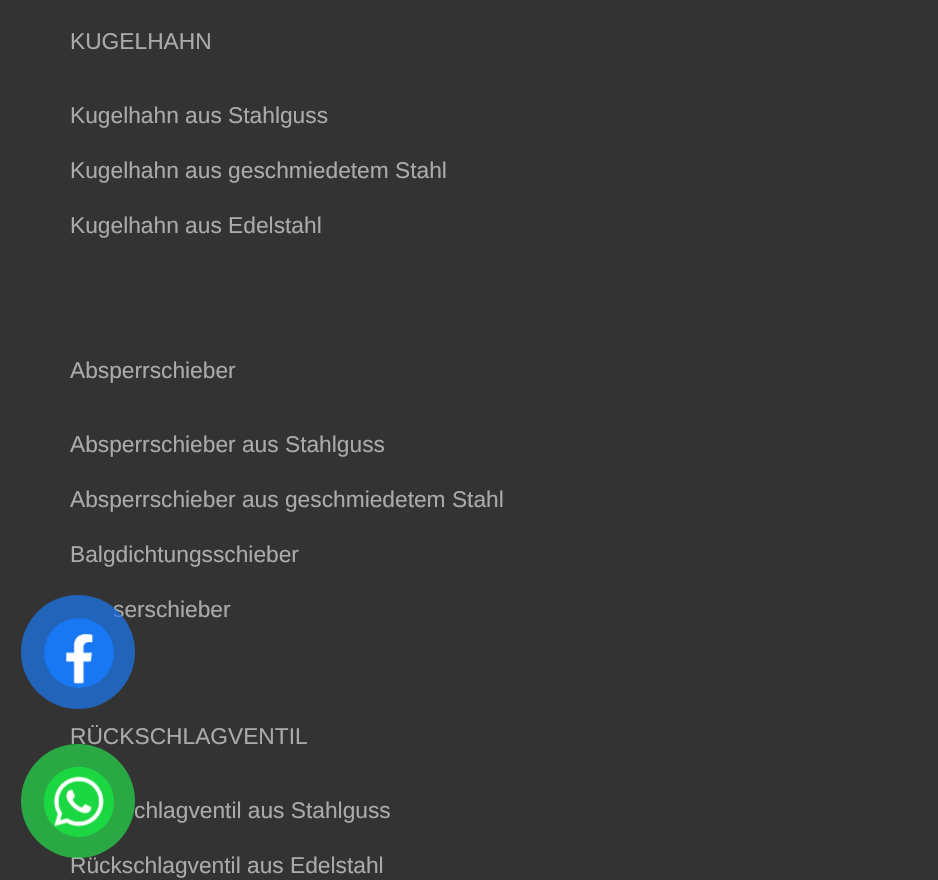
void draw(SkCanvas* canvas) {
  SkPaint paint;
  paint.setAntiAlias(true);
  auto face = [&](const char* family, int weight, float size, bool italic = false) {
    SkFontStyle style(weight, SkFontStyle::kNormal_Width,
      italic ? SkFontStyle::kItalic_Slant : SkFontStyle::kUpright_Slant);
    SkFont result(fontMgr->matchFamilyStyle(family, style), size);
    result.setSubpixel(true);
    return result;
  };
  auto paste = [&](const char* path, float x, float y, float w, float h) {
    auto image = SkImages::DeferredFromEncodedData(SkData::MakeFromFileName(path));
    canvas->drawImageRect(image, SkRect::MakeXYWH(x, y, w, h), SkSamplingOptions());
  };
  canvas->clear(0xff333333);
  auto f0 = face("Liberation Sans", 400, 22.75f);
  paint.setColor(0xffaaaaaa);
  {
    const struct { const char* s; float x, y; } items[] = {
      {"KUGELHAHN", 70, 49},
      {"Kugelhahn aus Stahlguss", 70, 123},
      {"Kugelhahn aus geschmiedetem Stahl", 70, 178},
      {"Kugelhahn aus Edelstahl", 70, 233},
      {"Absperrschieber", 70, 378},
      {"Absperrschieber aus Stahlguss", 70, 452},
      {"Absperrschieber aus geschmiedetem Stahl", 70, 507},
      {"Balgdichtungsschieber", 70, 562},
      {"serschieber", 113, 617},
      {"RÜCKSCHLAGVENTIL", 70, 744},
      {"chlagventil aus Stahlguss", 134, 818},
      {"Rückschlagventil aus Edelstahl", 70, 873},
    };
    for (auto [s, x, y] : items) {
      canvas->drawString(s, x, y, f0, paint);
    }
  }
  paint.setColor(0xb31877f2);
  canvas->drawCircle(78, 652, 57, paint);
  paint.setColor(0xff1877f2);
  canvas->drawCircle(79, 653, 35, paint);
  paste("img/1.png", 65, 633, 29, 52);
  paint.setColor(0xb323d948);
  canvas->drawCircle(78, 801, 57, paint);
  paint.setColor(0xff1cd741);
  canvas->drawCircle(79, 802, 35, paint);
  paste("img/2.png", 44, 766, 68, 61);
}
